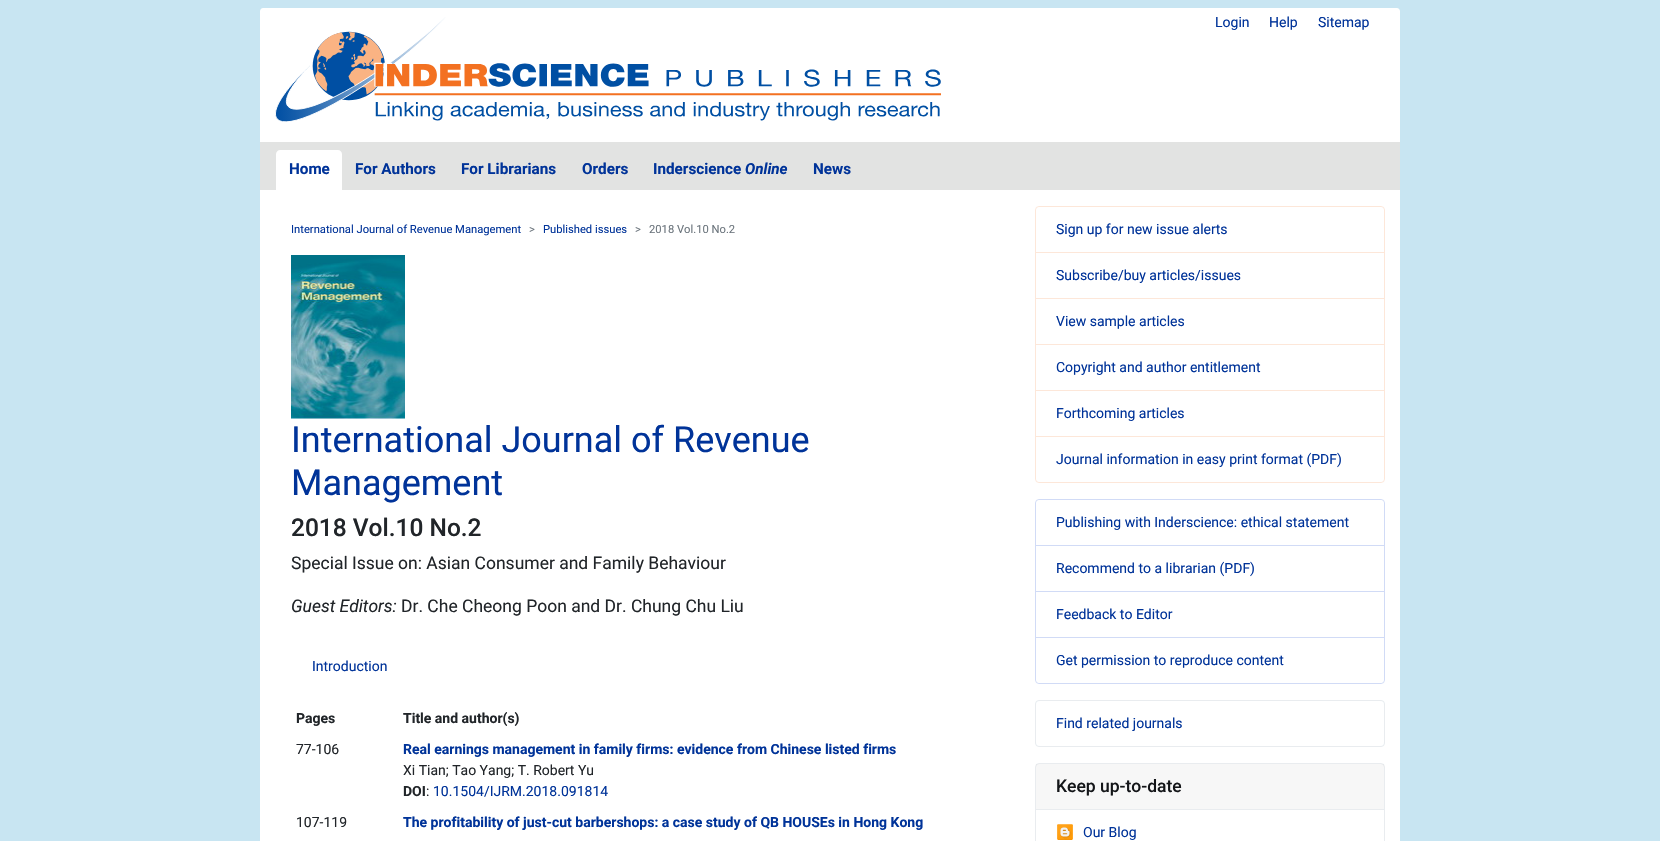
void draw(SkCanvas* canvas) {
  SkPaint paint;
  paint.setAntiAlias(true);
  auto face = [&](const char* family, int weight, float size, bool italic = false) {
    SkFontStyle style(weight, SkFontStyle::kNormal_Width,
      italic ? SkFontStyle::kItalic_Slant : SkFontStyle::kUpright_Slant);
    SkFont result(fontMgr->matchFamilyStyle(family, style), size);
    result.setSubpixel(true);
    return result;
  };
  auto paste = [&](const char* path, float x, float y, float w, float h) {
    auto image = SkImages::DeferredFromEncodedData(SkData::MakeFromFileName(path));
    canvas->drawImageRect(image, SkRect::MakeXYWH(x, y, w, h), SkSamplingOptions());
  };
  auto shape = [&](const char* data, bool evenOdd = false) {
    SkPath result = *SkParsePath::FromSVGString(data);
    if (evenOdd) result.setFillType(SkPathFillType::kEvenOdd);
    return result;
  };
  canvas->clear(0xffc8e5f2);
  paint.setColor(0xffffffff);
  canvas->drawPath(shape("M263 8H1397C1398.5 8 1400 9.5 1400 11V190H260V11C260 9.5 261.5 8 263 8Z"), paint);
  paste("img/1.png", 275, 17, 666, 105);
  paint.setColor(0xffe2e3e2);
  canvas->drawRect(SkRect::MakeXYWH(260, 142, 1140, 48), paint);
  paint.setColor(0xffffffff);
  canvas->drawRect(SkRect::MakeXYWH(260, 190, 1140, 651), paint);
  canvas->drawPath(shape("M280 150H338C340 150 342 152 342 154V191H276V154C276 152 278 150 280 150Z"), paint);
  paste("img/2.png", 291, 255, 114, 164);
  paint.setStroke(true);
  paint.setStrokeWidth(1);
  paint.setColor(0xfffde7d9);
  canvas->drawRoundRect(SkRect::MakeXYWH(1035.5f, 206.5f, 349, 276), 3.5f, 3.5f, paint);
  paint.setStroke(false);
  paint.setColor(0xffffffff);
  canvas->drawPath(shape("M1040 207H1380C1382 207 1384 209 1384 211V253H1036V211C1036 209 1038 207 1040 207Z"), paint);
  {
    const struct { float x, y, w, h; SkColor color; } items[] = {
      {1036, 252, 348, 1, 0xfffde7d9},
      {1036, 298, 348, 1, 0xfffde7d9},
      {1036, 344, 348, 1, 0xfffde7d9},
      {1036, 390, 348, 1, 0xfffde7d9},
    };
    for (auto [x, y, w, h, color] : items) {
      paint.setColor(color);
      canvas->drawRect(SkRect::MakeXYWH(x, y, w, h), paint);
    }
  }
  paint.setColor(0xffffffff);
  canvas->drawPath(shape("M1036 436H1384V478C1384 480 1382 482 1380 482H1040C1038 482 1036 480 1036 478Z"), paint);
  paint.setColor(0xfffde7d9);
  canvas->drawRect(SkRect::MakeXYWH(1036, 436, 348, 1), paint);
  paint.setStroke(true);
  paint.setColor(0xffd1dbf6);
  canvas->drawRoundRect(SkRect::MakeXYWH(1035.5f, 499.5f, 349, 184), 3.5f, 3.5f, paint);
  paint.setStroke(false);
  paint.setColor(0xffffffff);
  canvas->drawPath(shape("M1040 500H1380C1382 500 1384 502 1384 504V546H1036V504C1036 502 1038 500 1040 500Z"), paint);
  paint.setColor(0xffd1dbf6);
  canvas->drawRect(SkRect::MakeXYWH(1036, 545, 348, 1), paint);
  canvas->drawRect(SkRect::MakeXYWH(1036, 591, 348, 1), paint);
  paint.setColor(0xffffffff);
  canvas->drawPath(shape("M1036 637H1384V679C1384 681 1382 683 1380 683H1040C1038 683 1036 681 1036 679Z"), paint);
  paint.setColor(0xffd1dbf6);
  canvas->drawRect(SkRect::MakeXYWH(1036, 637, 348, 1), paint);
  paint.setColor(0xfff1f8fc);
  canvas->drawRoundRect(SkRect::MakeXYWH(1035.5f, 700.5f, 349, 46), 3.5f, 3.5f, paint);
  paint.setStroke(true);
  paint.setColor(0xffe9ecef);
  canvas->drawRoundRect(SkRect::MakeXYWH(1035.5f, 700.5f, 349, 46), 3.5f, 3.5f, paint);
  paint.setStroke(false);
  paint.setColor(0xffffffff);
  canvas->drawRoundRect(SkRect::MakeXYWH(1036, 701, 348, 45), 4, 4, paint);
  paint.setStroke(true);
  paint.setColor(0xffe9ecef);
  canvas->drawRoundRect(SkRect::MakeXYWH(1035.5f, 763.5f, 349, 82), 3.5f, 3.5f, paint);
  paint.setStroke(false);
  paint.setColor(0x08000000);
  canvas->drawRect(SkRect::MakeXYWH(1036, 764, 348, 45), paint);
  paint.setColor(0xffe9ecef);
  canvas->drawRect(SkRect::MakeXYWH(1036, 809, 348, 1), paint);
  paste("img/3.png", 1057, 824, 16, 16);
  auto f0 = face("Roboto", 400, 14);
  paint.setColor(0xff003399);
  {
    const struct { const char* s; float x, y; } items[] = {
      {"Login", 1215, 27},
      {"Help", 1269, 27},
      {"Sitemap", 1318, 27},
    };
    for (auto [s, x, y] : items) {
      canvas->drawString(s, x, y, f0, paint);
    }
  }
  auto f1 = face("Roboto", 700, 15.25f);
  {
    const struct { const char* s; float x, y; } items[] = {
      {"Home", 289, 174},
      {"For Authors", 355, 174},
      {"For Librarians", 461, 174},
      {"Orders", 582, 174},
      {"Inderscience", 653, 174},
    };
    for (auto [s, x, y] : items) {
      canvas->drawString(s, x, y, f1, paint);
    }
  }
  auto f2 = face("Roboto", 700, 15.25f, true);
  canvas->drawString("Online", 745, 174, f2, paint);
  canvas->drawString("News", 813, 174, f1, paint);
  auto f3 = face("Roboto", 400, 11.2f);
  canvas->drawString("International Journal of Revenue Management", 291, 233, f3, paint);
  paint.setColor(0xff6c757d);
  canvas->drawString(">", 529, 233, f3, paint);
  paint.setColor(0xff003399);
  canvas->drawString("Published issues", 543, 233, f3, paint);
  paint.setColor(0xff6c757d);
  canvas->drawString(">", 635, 233, f3, paint);
  canvas->drawString("2018 Vol.10 No.2", 649, 233, f3, paint);
  auto f4 = face("Roboto", 400, 36);
  paint.setColor(0xff003399);
  canvas->drawString("International Journal of Revenue", 291, 452, f4, paint);
  canvas->drawString("Management", 291, 495, f4, paint);
  auto f5 = face("Roboto", 500, 24.5f);
  paint.setColor(0xff212529);
  canvas->drawString("2018 Vol.10 No.2", 291, 536, f5, paint);
  auto f6 = face("Roboto", 400, 17.5f);
  canvas->drawString("Special Issue on: Asian Consumer and Family Behaviour", 291, 569, f6, paint);
  auto f7 = face("Roboto", 400, 17.5f, true);
  canvas->drawString("Guest Editors:", 291, 612, f7, paint);
  canvas->drawString("Dr. Che Cheong Poon and Dr. Chung Chu Liu", 401, 612, f6, paint);
  paint.setColor(0xff003399);
  canvas->drawString("Introduction", 312, 671, f0, paint);
  auto f8 = face("Roboto", 700, 14);
  paint.setColor(0xff212529);
  canvas->drawString("Pages", 296, 723, f8, paint);
  canvas->drawString("Title and author(s)", 403, 723, f8, paint);
  canvas->drawString("77-106", 296, 754, f0, paint);
  paint.setColor(0xff003399);
  canvas->drawString("Real earnings management in family firms: evidence from Chinese listed firms", 403, 754, f8, paint);
  paint.setColor(0xff212529);
  canvas->drawString("Xi Tian; Tao Yang; T. Robert Yu", 403, 775, f0, paint);
  canvas->drawString("DOI", 403, 796, f8, paint);
  canvas->drawString(":", 426, 796, f0, paint);
  paint.setColor(0xff003399);
  canvas->drawString("10.1504/IJRM.2018.091814", 433, 796, f0, paint);
  paint.setColor(0xff212529);
  canvas->drawString("107-119", 296, 827, f0, paint);
  paint.setColor(0xff003399);
  canvas->drawString("The profitability of just-cut barbershops: a case study of QB HOUSEs in Hong Kong", 403, 827, f8, paint);
  {
    const struct { const char* s; float x, y; } items[] = {
      {"Sign up for new issue alerts", 1056, 234},
      {"Subscribe/buy articles/issues", 1056, 280},
      {"View sample articles", 1056, 326},
      {"Copyright and author entitlement", 1056, 372},
      {"Forthcoming articles", 1056, 418},
      {"Journal information in easy print format (PDF)", 1056, 464},
      {"Publishing with Inderscience: ethical statement", 1056, 527},
      {"Recommend to a librarian (PDF)", 1056, 573},
      {"Feedback to Editor", 1056, 619},
      {"Get permission to reproduce content", 1056, 665},
      {"Find related journals", 1056, 728},
    };
    for (auto [s, x, y] : items) {
      canvas->drawString(s, x, y, f0, paint);
    }
  }
  auto f9 = face("Roboto", 500, 17.5f);
  paint.setColor(0xff141619);
  canvas->drawString("Keep up-to-date", 1056, 792, f9, paint);
  paint.setColor(0xff003399);
  canvas->drawString("Our Blog", 1083, 837, f0, paint);
}
